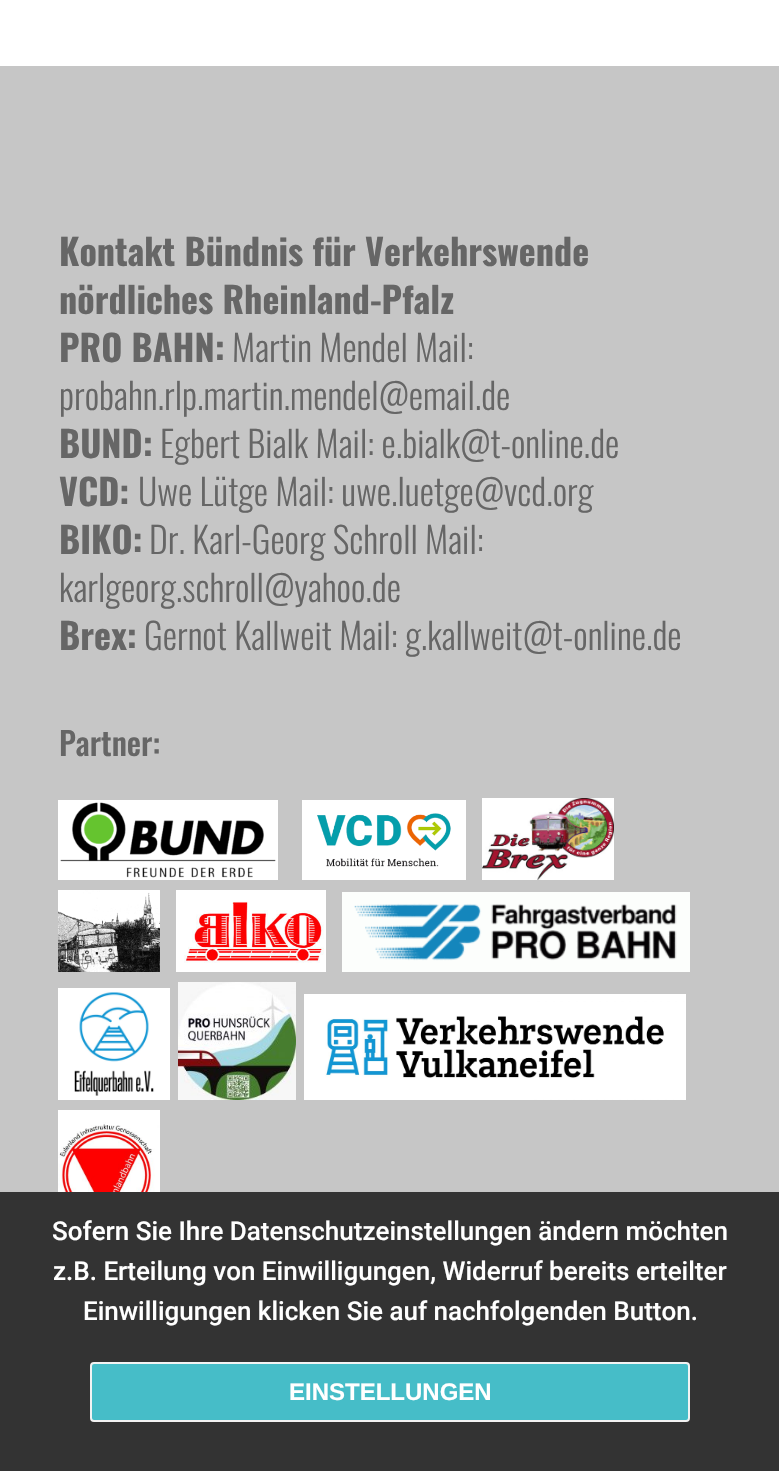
void draw(SkCanvas* canvas) {
  SkPaint paint;
  paint.setAntiAlias(true);
  auto face = [&](const char* family, int weight, float size, bool italic = false) {
    SkFontStyle style(weight, SkFontStyle::kNormal_Width,
      italic ? SkFontStyle::kItalic_Slant : SkFontStyle::kUpright_Slant);
    SkFont result(fontMgr->matchFamilyStyle(family, style), size);
    result.setSubpixel(true);
    return result;
  };
  auto paste = [&](const char* path, float x, float y, float w, float h) {
    auto image = SkImages::DeferredFromEncodedData(SkData::MakeFromFileName(path));
    canvas->drawImageRect(image, SkRect::MakeXYWH(x, y, w, h), SkSamplingOptions());
  };
  canvas->clear(0xffffffff);
  paint.setColor(0xffc6c6c6);
  canvas->drawRect(SkRect::MakeXYWH(0, 66, 779, 1126), paint);
  paint.setColor(0xffffffff);
  canvas->drawRect(SkRect::MakeXYWH(58, 800, 220, 80), paint);
  paste("img/1.png", 302, 800, 164, 80);
  paste("img/2.png", 482, 798, 132, 82);
  paste("img/3.png", 60, 802, 216, 76);
  paste("img/4.png", 58, 890, 102, 82);
  paste("img/5.png", 176, 890, 150, 82);
  paste("img/6.png", 342, 892, 348, 80);
  paste("img/7.png", 58, 988, 112, 112);
  paste("img/8.png", 178, 982, 118, 118);
  paste("img/9.png", 304, 994, 382, 106);
  paste("img/10.png", 58, 1110, 102, 82);
  paint.setColor(0xff333333);
  canvas->drawRect(SkRect::MakeXYWH(0, 1192, 779, 279), paint);
  paint.setColor(0xff46bdc8);
  canvas->drawRoundRect(SkRect::MakeXYWH(91, 1363, 598, 58), 3, 3, paint);
  paint.setStroke(true);
  paint.setStrokeWidth(2);
  paint.setColor(0xfff3f3f3);
  canvas->drawRoundRect(SkRect::MakeXYWH(91, 1363, 598, 58), 3, 3, paint);
  auto f0 = face("Oswald", 700, 36);
  paint.setStroke(false);
  paint.setColor(0xff666666);
  {
    const struct { const char* s; float x, y; } items[] = {
      {"Kontakt Bündnis für Verkehrswende", 59, 266},
      {"nördliches Rheinland-Pfalz", 59, 314},
      {"PRO BAHN:", 59, 362},
    };
    for (auto [s, x, y] : items) {
      canvas->drawString(s, x, y, f0, paint);
    }
  }
  auto f1 = face("Oswald", 300, 36);
  canvas->drawString("Martin Mendel Mail:", 232, 362, f1, paint);
  canvas->drawString("probahn.rlp.martin.mendel@email.de", 59, 410, f1, paint);
  canvas->drawString("BUND:", 59, 458, f0, paint);
  canvas->drawString("Egbert Bialk Mail: e.bialk@t-online.de", 160, 458, f1, paint);
  canvas->drawString("VCD:", 59, 506, f0, paint);
  canvas->drawString("Uwe Lütge Mail: uwe.luetge@vcd.org", 138, 506, f1, paint);
  canvas->drawString("BIKO:", 59, 554, f0, paint);
  canvas->drawString("Dr. Karl-Georg Schroll Mail:", 149, 554, f1, paint);
  canvas->drawString("karlgeorg.schroll@yahoo.de", 59, 602, f1, paint);
  canvas->drawString("Brex:", 59, 650, f0, paint);
  canvas->drawString("Gernot Kallweit Mail: g.kallweit@t-online.de", 144, 650, f1, paint);
  auto f2 = face("Oswald", 500, 32);
  canvas->drawString("Partner:", 59, 756, f2, paint);
  auto f3 = face("Roboto", 500, 26);
  paint.setColor(0xffffffff);
  {
    const struct { const char* s; float x, y; } items[] = {
      {"Sofern Sie Ihre Datenschutzeinstellungen ändern möchten", 52, 1240},
      {"z.B. Erteilung von Einwilligungen, Widerruf bereits erteilter", 53, 1280},
      {"Einwilligungen klicken Sie auf nachfolgenden Button.", 83, 1320},
    };
    for (auto [s, x, y] : items) {
      canvas->drawString(s, x, y, f3, paint);
    }
  }
  auto f4 = face("Liberation Sans", 700, 24);
  canvas->drawString("EINSTELLUNGEN", 289, 1400, f4, paint);
}
